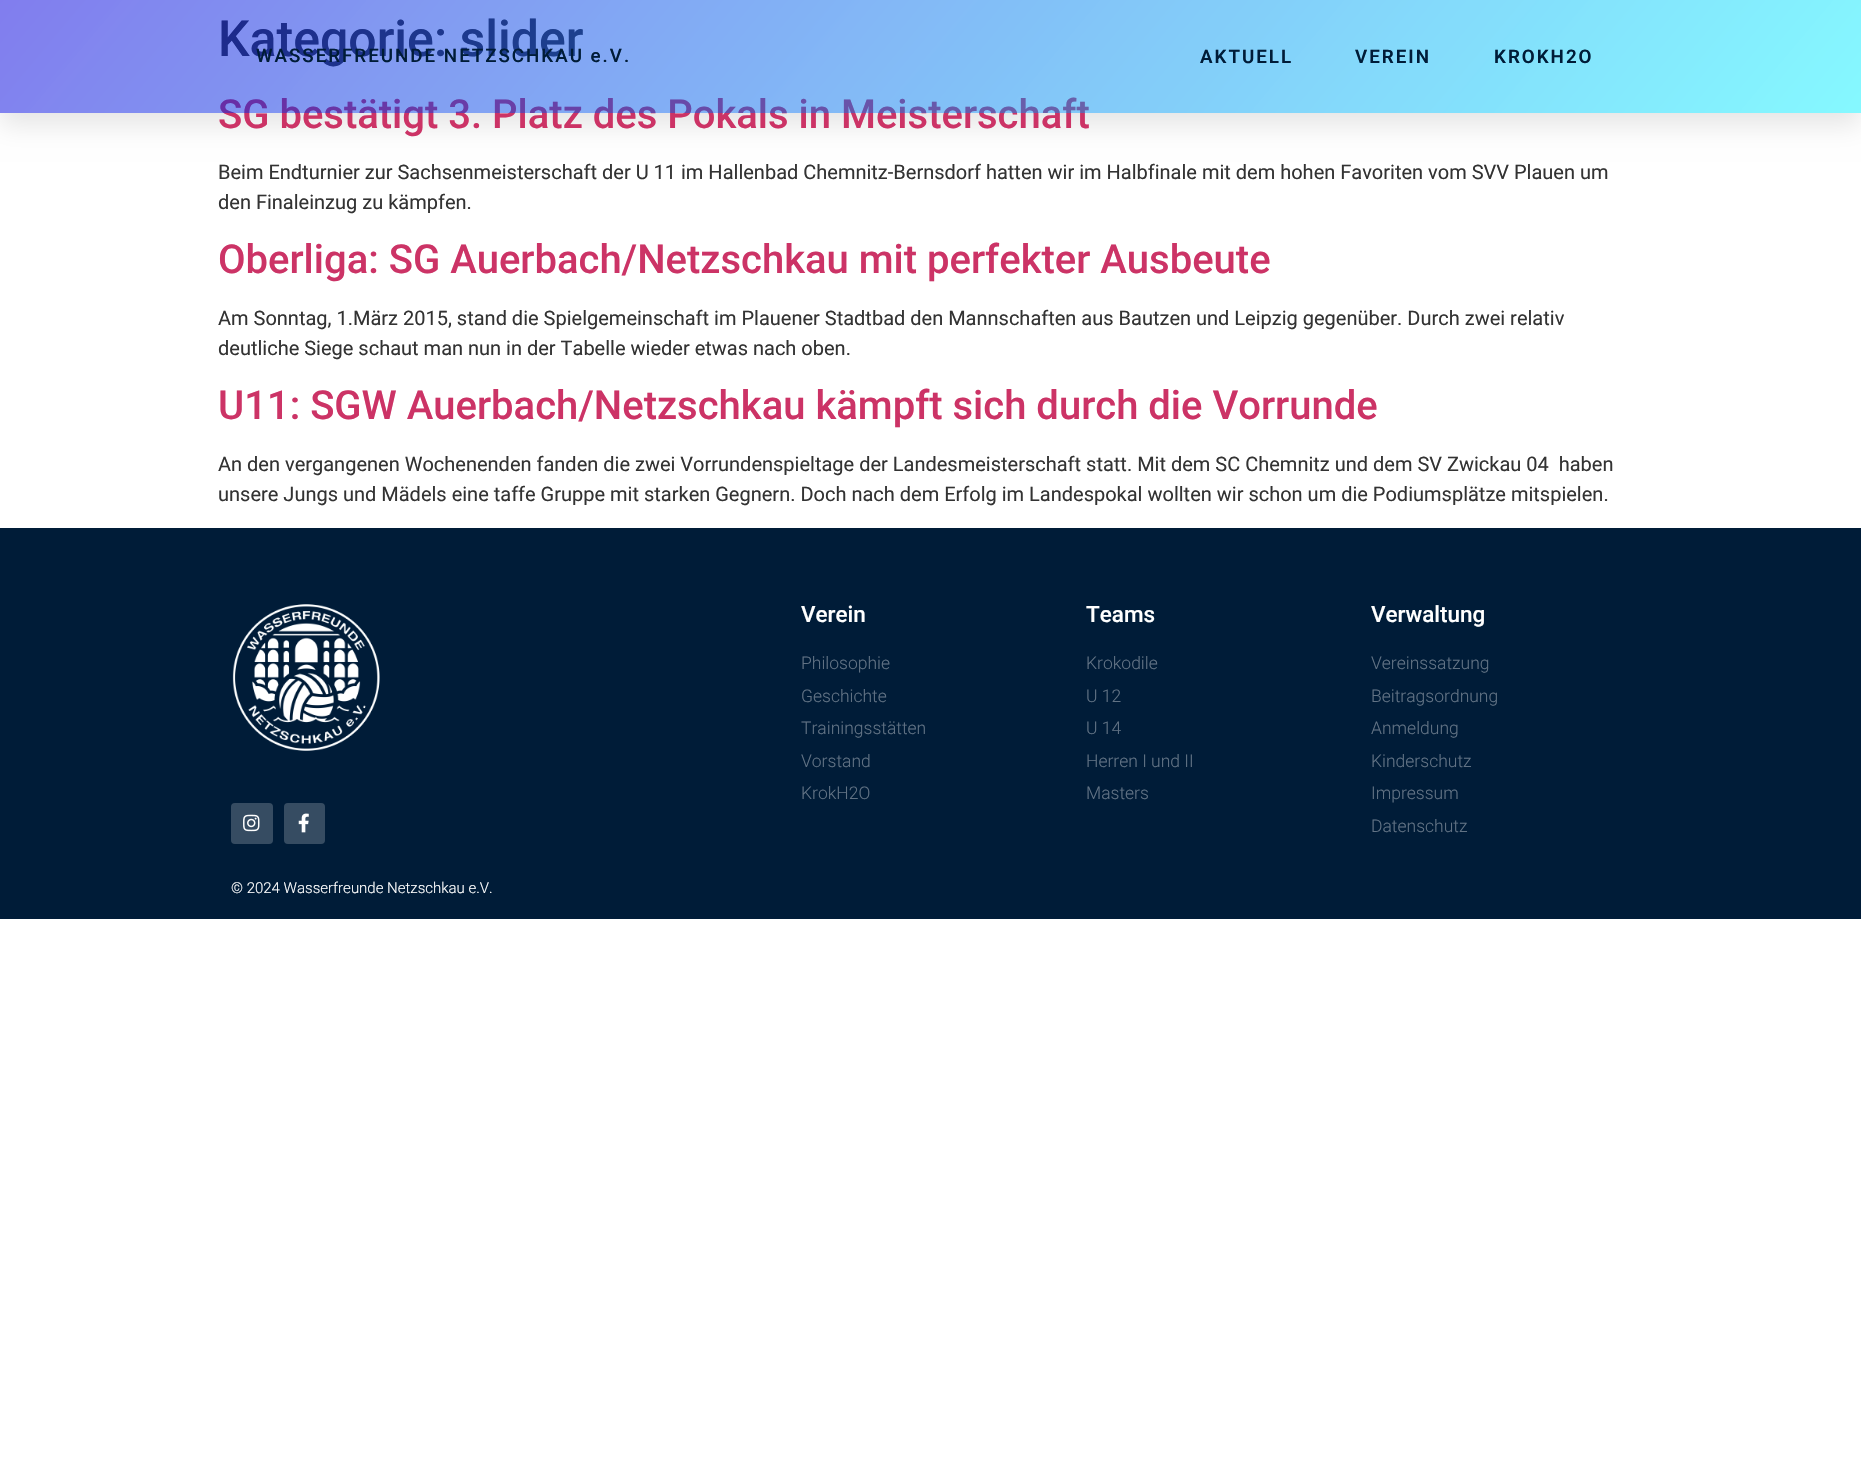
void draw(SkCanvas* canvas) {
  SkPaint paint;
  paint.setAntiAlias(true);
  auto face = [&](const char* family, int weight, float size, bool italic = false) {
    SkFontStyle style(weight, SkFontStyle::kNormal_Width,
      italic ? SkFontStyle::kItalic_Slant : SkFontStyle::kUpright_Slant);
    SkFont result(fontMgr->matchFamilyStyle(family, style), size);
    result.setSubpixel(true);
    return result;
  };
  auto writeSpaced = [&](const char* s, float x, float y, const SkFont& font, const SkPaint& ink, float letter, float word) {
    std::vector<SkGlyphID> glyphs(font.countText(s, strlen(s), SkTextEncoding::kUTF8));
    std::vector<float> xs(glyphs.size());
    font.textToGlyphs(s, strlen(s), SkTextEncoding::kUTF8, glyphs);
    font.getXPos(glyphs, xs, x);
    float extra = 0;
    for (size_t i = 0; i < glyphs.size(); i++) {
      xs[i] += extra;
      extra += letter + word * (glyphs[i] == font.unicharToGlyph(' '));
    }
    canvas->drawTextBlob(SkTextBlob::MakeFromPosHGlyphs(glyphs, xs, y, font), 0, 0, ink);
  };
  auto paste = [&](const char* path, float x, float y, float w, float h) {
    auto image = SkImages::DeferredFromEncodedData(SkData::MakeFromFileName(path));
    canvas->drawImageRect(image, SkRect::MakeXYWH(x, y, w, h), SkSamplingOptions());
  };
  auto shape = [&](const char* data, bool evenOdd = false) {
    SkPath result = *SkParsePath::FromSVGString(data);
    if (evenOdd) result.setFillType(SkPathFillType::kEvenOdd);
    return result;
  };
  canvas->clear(0xffffffff);
  canvas->save();
  canvas->clipPath(shape("M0 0H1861V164H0ZM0 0H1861V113H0Z", true), true);
  paint.setColor(0x1a000000);
  paint.setMaskFilter(SkMaskFilter::MakeBlur(kNormal_SkBlurStyle, 12.5f));
  canvas->drawRect(SkRect::MakeXYWH(0, 13, 1861, 112), paint);
  paint.setMaskFilter(nullptr);
  canvas->restore();
  paint.setColor(0xff001c38);
  canvas->drawRect(SkRect::MakeXYWH(0, 528, 1861, 391), paint);
  paste("img/1.png", 232, 604, 148, 147);
  paint.setColor(0xff364c62);
  canvas->drawRoundRect(SkRect::MakeXYWH(231, 803, 42, 41), 4, 4, paint);
  paste("img/2.png", 243, 814, 17, 18);
  canvas->drawRoundRect(SkRect::MakeXYWH(284, 803, 41, 41), 4, 4, paint);
  paste("img/3.png", 298, 813, 11, 20);
  auto f0 = face("Roboto", 500, 50);
  paint.setColor(0xff333333);
  canvas->drawString("Kategorie: slider", 218, 56, f0, paint);
  auto f1 = face("Roboto", 500, 40);
  paint.setColor(0xffcc3366);
  canvas->drawString("SG bestätigt 3. Platz des Pokals in Meisterschaft", 218, 128, f1, paint);
  auto f2 = face("Roboto", 400, 20);
  paint.setColor(0xff333333);
  canvas->drawString("Beim Endturnier zur Sachsenmeisterschaft der U 11 im Hallenbad Chemnitz-Bernsdorf hatten wir im Halbfinale mit dem hohen Favoriten vom SVV Plauen um", 218, 179, f2, paint);
  canvas->drawString("den Finaleinzug zu kämpfen.", 218, 209, f2, paint);
  paint.setColor(0xffcc3366);
  canvas->drawString("Oberliga: SG Auerbach/Netzschkau mit perfekter Ausbeute", 218, 273, f1, paint);
  paint.setColor(0xff333333);
  canvas->drawString("Am Sonntag, 1.März 2015, stand die Spielgemeinschaft im Plauener Stadtbad den Mannschaften aus Bautzen und Leipzig gegenüber. Durch zwei relativ", 218, 325, f2, paint);
  canvas->drawString("deutliche Siege schaut man nun in der Tabelle wieder etwas nach oben.", 218, 355, f2, paint);
  paint.setColor(0xffcc3366);
  canvas->drawString("U11: SGW Auerbach/Netzschkau kämpft sich durch die Vorrunde", 218, 419, f1, paint);
  paint.setColor(0xff333333);
  canvas->drawString("An den vergangenen Wochenenden fanden die zwei Vorrundenspieltage der Landesmeisterschaft statt. Mit dem SC Chemnitz und dem SV Zwickau 04  haben", 218, 471, f2, paint);
  canvas->drawString("unsere Jungs und Mädels eine taffe Gruppe mit starken Gegnern. Doch nach dem Erfolg im Landespokal wollten wir schon um die Podiumsplätze mitspielen.", 218, 501, f2, paint);
  {
    const SkColor colors[] = {0x820700dd, 0x7a00f2ff};
    const float stops[] = {0, 1};
    const SkPoint ends[] = {{357, -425}, {1504, 538}};
    paint.setShader(SkGradientShader::MakeLinear(ends, colors, stops, 2, SkTileMode::kClamp));
    paint.setAlpha(255);
  }
  canvas->drawRect(SkRect::MakeXYWH(0, 0, 1861, 113), paint);
  auto f3 = face("Roboto", 500, 18.75f);
  paint.setShader(nullptr);
  paint.setColor(0xff001c38);
  writeSpaced("WASSERFREUNDE NETZSCHKAU e.V.", 256, 62, f3, paint, 2, 0);
  auto f4 = face("Roboto", 600, 18.75f);
  {
    const struct { const char* s; float x, y; } items[] = {
      {"AKTUELL", 1200, 63},
      {"VEREIN", 1355, 63},
      {"KROKH2O", 1494, 63},
    };
    for (auto [s, x, y] : items) {
      writeSpaced(s, x, y, f4, paint, 2, 0);
    }
  }
  auto f5 = face("Roboto", 500, 22.5f);
  paint.setColor(0xffffffff);
  canvas->drawString("Verein", 801, 622, f5, paint);
  auto f6 = face("Roboto", 300, 17.5f);
  paint.setColor(0xff617284);
  {
    const struct { const char* s; float x, y; } items[] = {
      {"Philosophie", 801, 669},
      {"Geschichte", 801, 702},
      {"Trainingsstätten", 801, 734},
      {"Vorstand", 801, 767},
      {"KrokH2O", 801, 799},
    };
    for (auto [s, x, y] : items) {
      canvas->drawString(s, x, y, f6, paint);
    }
  }
  paint.setColor(0xffffffff);
  canvas->drawString("Teams", 1086, 622, f5, paint);
  paint.setColor(0xff617284);
  {
    const struct { const char* s; float x, y; } items[] = {
      {"Krokodile", 1086, 669},
      {"U 12", 1086, 702},
      {"U 14", 1086, 734},
      {"Herren I und II", 1086, 767},
      {"Masters", 1086, 799},
    };
    for (auto [s, x, y] : items) {
      canvas->drawString(s, x, y, f6, paint);
    }
  }
  paint.setColor(0xffffffff);
  canvas->drawString("Verwaltung", 1371, 622, f5, paint);
  paint.setColor(0xff617284);
  {
    const struct { const char* s; float x, y; } items[] = {
      {"Vereinssatzung", 1371, 669},
      {"Beitragsordnung", 1371, 702},
      {"Anmeldung", 1371, 734},
      {"Kinderschutz", 1371, 767},
      {"Impressum", 1371, 799},
      {"Datenschutz", 1371, 832},
    };
    for (auto [s, x, y] : items) {
      canvas->drawString(s, x, y, f6, paint);
    }
  }
  auto f7 = face("Roboto", 300, 15);
  paint.setColor(0xffffffff);
  canvas->drawString("© 2024 Wasserfreunde Netzschkau e.V.", 231, 893, f7, paint);
}
